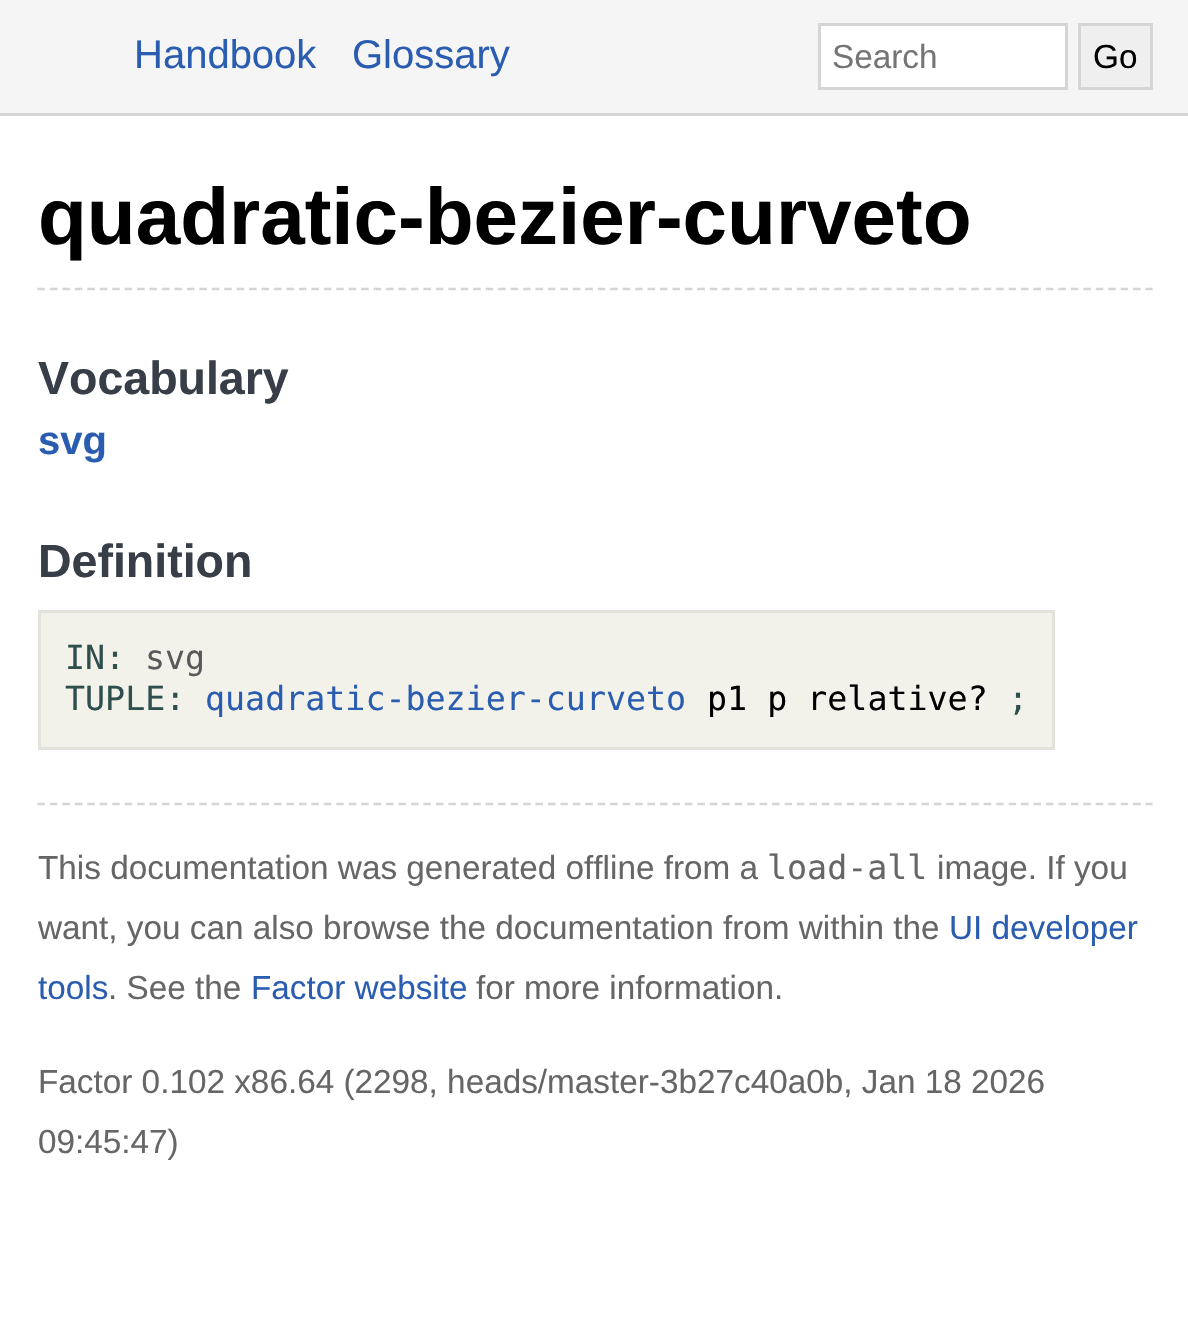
void draw(SkCanvas* canvas) {
  SkPaint paint;
  paint.setAntiAlias(true);
  auto face = [&](const char* family, int weight, float size, bool italic = false) {
    SkFontStyle style(weight, SkFontStyle::kNormal_Width,
      italic ? SkFontStyle::kItalic_Slant : SkFontStyle::kUpright_Slant);
    SkFont result(fontMgr->matchFamilyStyle(family, style), size);
    result.setSubpixel(true);
    return result;
  };
  auto shape = [&](const char* data, bool evenOdd = false) {
    SkPath result = *SkParsePath::FromSVGString(data);
    if (evenOdd) result.setFillType(SkPathFillType::kEvenOdd);
    return result;
  };
  canvas->clear(0xffffffff);
  paint.setColor(0xfff5f5f5);
  canvas->drawRect(SkRect::MakeXYWH(0, 0, 1188, 113), paint);
  paint.setColor(0xffd5d5d5);
  canvas->drawRect(SkRect::MakeXYWH(0, 113, 1188, 3), paint);
  paint.setColor(0xffffffff);
  canvas->drawRect(SkRect::MakeXYWH(819.5f, 24.5f, 247, 64), paint);
  paint.setStroke(true);
  paint.setStrokeWidth(3);
  paint.setColor(0xffd5d5d5);
  canvas->drawRect(SkRect::MakeXYWH(819.5f, 24.5f, 247, 64), paint);
  paint.setStroke(false);
  paint.setColor(0xffefefef);
  canvas->drawRect(SkRect::MakeXYWH(1079.5f, 24.5f, 72, 64), paint);
  paint.setStroke(true);
  paint.setColor(0xffd5d5d5);
  canvas->drawRect(SkRect::MakeXYWH(1079.5f, 24.5f, 72, 64), paint);
  paint.setStrokeWidth(2.5f);
  paint.setPathEffect(SkDashPathEffect::Make({{7.5f, 4.95f}}, 0));
  canvas->drawPath(shape("M37.5 289H1152.5"), paint);
  paint.setPathEffect(nullptr);
  paint.setStroke(false);
  paint.setColor(0xfff3f2ea);
  canvas->drawRect(SkRect::MakeXYWH(39.5f, 611.5f, 1014, 137), paint);
  paint.setStroke(true);
  paint.setStrokeWidth(3);
  paint.setColor(0xffe3e2db);
  canvas->drawRect(SkRect::MakeXYWH(39.5f, 611.5f, 1014, 137), paint);
  paint.setStrokeWidth(2.5f);
  paint.setColor(0xffd5d5d5);
  paint.setPathEffect(SkDashPathEffect::Make({{7.5f, 4.95f}}, 0));
  canvas->drawPath(shape("M37.5 804H1152.5"), paint);
  paint.setPathEffect(nullptr);
  auto f0 = face("Liberation Sans", 400, 40);
  paint.setStroke(false);
  paint.setColor(0xff2a5db0);
  canvas->drawString("Handbook", 134, 68, f0, paint);
  canvas->drawString("Glossary", 352, 68, f0, paint);
  auto f1 = face("Liberation Sans", 400, 33.3f);
  paint.setColor(0xff757575);
  canvas->drawString("Search", 832, 68, f1, paint);
  paint.setColor(0xff000000);
  canvas->drawString("Go", 1093, 68, f1, paint);
  auto f2 = face("Liberation Sans", 700, 80);
  canvas->drawString("quadratic-bezier-curveto", 38, 244, f2, paint);
  auto f3 = face("Liberation Sans", 700, 46.5f);
  paint.setColor(0xff373e48);
  canvas->drawString("Vocabulary", 38, 394, f3, paint);
  auto f4 = face("Liberation Sans", 700, 40);
  paint.setColor(0xff2a5db0);
  canvas->drawString("svg", 38, 454, f4, paint);
  paint.setColor(0xff373e48);
  canvas->drawString("Definition", 38, 577, f3, paint);
  auto f5 = face("DejaVu Sans Mono", 400, 33.3f);
  paint.setColor(0xff2f4f4f);
  canvas->drawString("IN:", 65, 669, f5, paint);
  paint.setColor(0xff595959);
  canvas->drawString("svg", 145, 669, f5, paint);
  paint.setColor(0xff2f4f4f);
  canvas->drawString("TUPLE:", 65, 710, f5, paint);
  paint.setColor(0xff2a5db0);
  canvas->drawString("quadratic-bezier-curveto", 205, 710, f5, paint);
  paint.setColor(0xff000000);
  canvas->drawString("p1 p relative?", 707, 710, f5, paint);
  paint.setColor(0xff2f4f4f);
  canvas->drawString(";", 1008, 710, f5, paint);
  paint.setColor(0xff666666);
  canvas->drawString("This documentation was generated offline from a", 38, 879, f1, paint);
  canvas->drawString("load-all", 767, 879, f5, paint);
  canvas->drawString("image. If you", 937, 879, f1, paint);
  canvas->drawString("want, you can also browse the documentation from within the", 38, 939, f1, paint);
  paint.setColor(0xff2a5db0);
  canvas->drawString("UI developer", 949, 939, f1, paint);
  canvas->drawString("tools", 38, 999, f1, paint);
  paint.setColor(0xff666666);
  canvas->drawString(". See the", 108, 999, f1, paint);
  paint.setColor(0xff2a5db0);
  canvas->drawString("Factor website", 251, 999, f1, paint);
  paint.setColor(0xff666666);
  {
    const struct { const char* s; float x, y; } items[] = {
      {"for more information.", 476, 999},
      {"Factor 0.102 x86.64 (2298, heads/master-3b27c40a0b, Jan 18 2026", 38, 1093},
      {"09:45:47)", 38, 1153},
    };
    for (auto [s, x, y] : items) {
      canvas->drawString(s, x, y, f1, paint);
    }
  }
}
